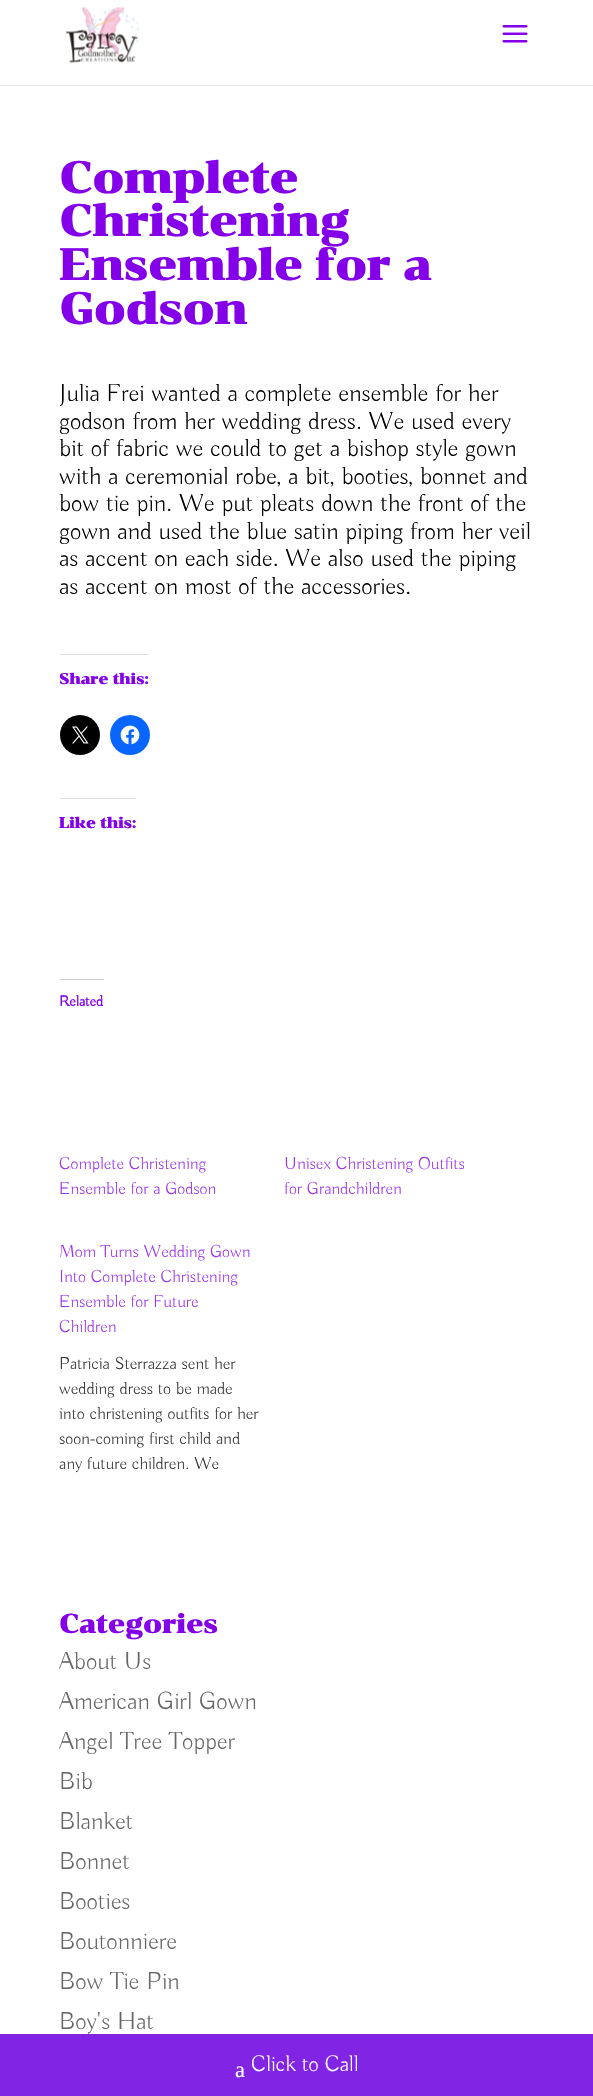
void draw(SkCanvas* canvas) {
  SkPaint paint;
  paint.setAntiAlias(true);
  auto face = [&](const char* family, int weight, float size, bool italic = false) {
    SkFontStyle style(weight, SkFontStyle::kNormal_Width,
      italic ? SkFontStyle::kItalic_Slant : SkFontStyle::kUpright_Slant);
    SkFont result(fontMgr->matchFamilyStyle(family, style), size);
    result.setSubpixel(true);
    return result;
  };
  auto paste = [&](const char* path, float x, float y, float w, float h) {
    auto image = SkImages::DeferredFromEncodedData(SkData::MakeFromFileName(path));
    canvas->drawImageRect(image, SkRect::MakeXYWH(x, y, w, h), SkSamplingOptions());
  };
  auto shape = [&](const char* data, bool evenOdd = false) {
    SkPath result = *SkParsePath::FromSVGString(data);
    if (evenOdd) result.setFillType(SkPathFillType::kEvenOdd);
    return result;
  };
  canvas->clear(0xffffffff);
  paint.setColor(0xffe6e6e6);
  canvas->drawPath(shape("M0 85V86H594V-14V85Z"), paint);
  paste("img/1.png", 66, 7, 73, 56);
  paste("img/2.png", 502, 25, 26, 18);
  paint.setColor(0xffdcdcde);
  canvas->drawRect(SkRect::MakeXYWH(60, 654, 89, 1), paint);
  paint.setColor(0xff000000);
  canvas->drawCircle(80, 735, 20, paint);
  paste("img/3.png", 72, 726, 17, 18);
  paint.setColor(0xff0866ff);
  canvas->drawCircle(130, 735, 20, paint);
  paste("img/4.png", 120, 725, 20, 20);
  {
    const struct { float x, y, w, h; SkColor color; } items[] = {
      {60, 798, 76, 1, 0xffdcdcde},
      {60, 979, 44, 1, 0xffcccccc},
      {0, 2034, 593, 62, 0xff8224e3},
    };
    for (auto [x, y, w, h, color] : items) {
      paint.setColor(color);
      canvas->drawRect(SkRect::MakeXYWH(x, y, w, h), paint);
    }
  }
  auto f0 = face("Chonburi", 700, 43.75f);
  paint.setColor(0xff8300e9);
  {
    const struct { const char* s; float x, y; } items[] = {
      {"Complete", 59, 193},
      {"Christening", 59, 236},
      {"Ensemble for a", 59, 280},
      {"Godson", 59, 324},
    };
    for (auto [s, x, y] : items) {
      canvas->drawString(s, x, y, f0, paint);
    }
  }
  auto f1 = face("Buda", 300, 25);
  paint.setColor(0xff000000);
  {
    const struct { const char* s; float x, y; } items[] = {
      {"Julia Frei wanted a complete ensemble for her", 59, 401},
      {"godson from her wedding dress. We used every", 59, 429},
      {"bit of fabric we could to get a bishop style gown", 59, 456},
      {"with a ceremonial robe, a bit, booties, bonnet and", 59, 484},
      {"bow tie pin. We put pleats down the front of the", 59, 511},
      {"gown and used the blue satin piping from her veil", 59, 539},
      {"as accent on each side. We also used the piping", 59, 566},
      {"as accent on most of the accessories.", 59, 594},
    };
    for (auto [s, x, y] : items) {
      canvas->drawString(s, x, y, f1, paint);
    }
  }
  auto f2 = face("Chonburi", 700, 15);
  paint.setColor(0xff8300e9);
  canvas->drawString("Share this:", 59, 684, f2, paint);
  canvas->drawString("Like this:", 59, 828, f2, paint);
  auto f3 = face("Buda", 700, 15);
  canvas->drawString("Related", 59, 1006, f3, paint);
  auto f4 = face("Buda", 300, 17.5f);
  paint.setColor(0xff9c33ed);
  {
    const struct { const char* s; float x, y; } items[] = {
      {"Complete Christening", 59, 1169},
      {"Ensemble for a Godson", 59, 1194},
      {"Unisex Christening Outfits", 284, 1169},
      {"for Grandchildren", 284, 1194},
      {"Mom Turns Wedding Gown", 59, 1257},
      {"Into Complete Christening", 59, 1282},
      {"Ensemble for Future", 59, 1307},
      {"Children", 59, 1332},
    };
    for (auto [s, x, y] : items) {
      canvas->drawString(s, x, y, f4, paint);
    }
  }
  paint.setColor(0xff333333);
  {
    const struct { const char* s; float x, y; } items[] = {
      {"Patricia Sterrazza sent her", 59, 1369},
      {"wedding dress to be made", 59, 1394},
      {"into christening outfits for her", 59, 1419},
      {"soon-coming first child and", 59, 1444},
      {"any future children. We", 59, 1469},
    };
    for (auto [s, x, y] : items) {
      canvas->drawString(s, x, y, f4, paint);
    }
  }
  auto f5 = face("Chonburi", 700, 26.25f);
  paint.setColor(0xff8300e9);
  canvas->drawString("Categories", 59, 1633, f5, paint);
  paint.setColor(0xff666666);
  {
    const struct { const char* s; float x, y; } items[] = {
      {"About Us", 59, 1669},
      {"American Girl Gown", 59, 1709},
      {"Angel Tree Topper", 59, 1749},
      {"Bib", 59, 1789},
      {"Blanket", 59, 1829},
      {"Bonnet", 59, 1869},
      {"Booties", 59, 1909},
      {"Boutonniere", 59, 1949},
      {"Bow Tie Pin", 59, 1989},
      {"Boy's Hat", 59, 2029},
    };
    for (auto [s, x, y] : items) {
      canvas->drawString(s, x, y, f1, paint);
    }
  }
  auto f6 = face("Liberation Serif", 400, 22.5f);
  paint.setColor(0xffffffff);
  canvas->drawString("a", 235, 2077, f6, paint);
  auto f7 = face("Buda", 300, 22.5f);
  canvas->drawString("Click to Call", 251, 2071, f7, paint);
}
